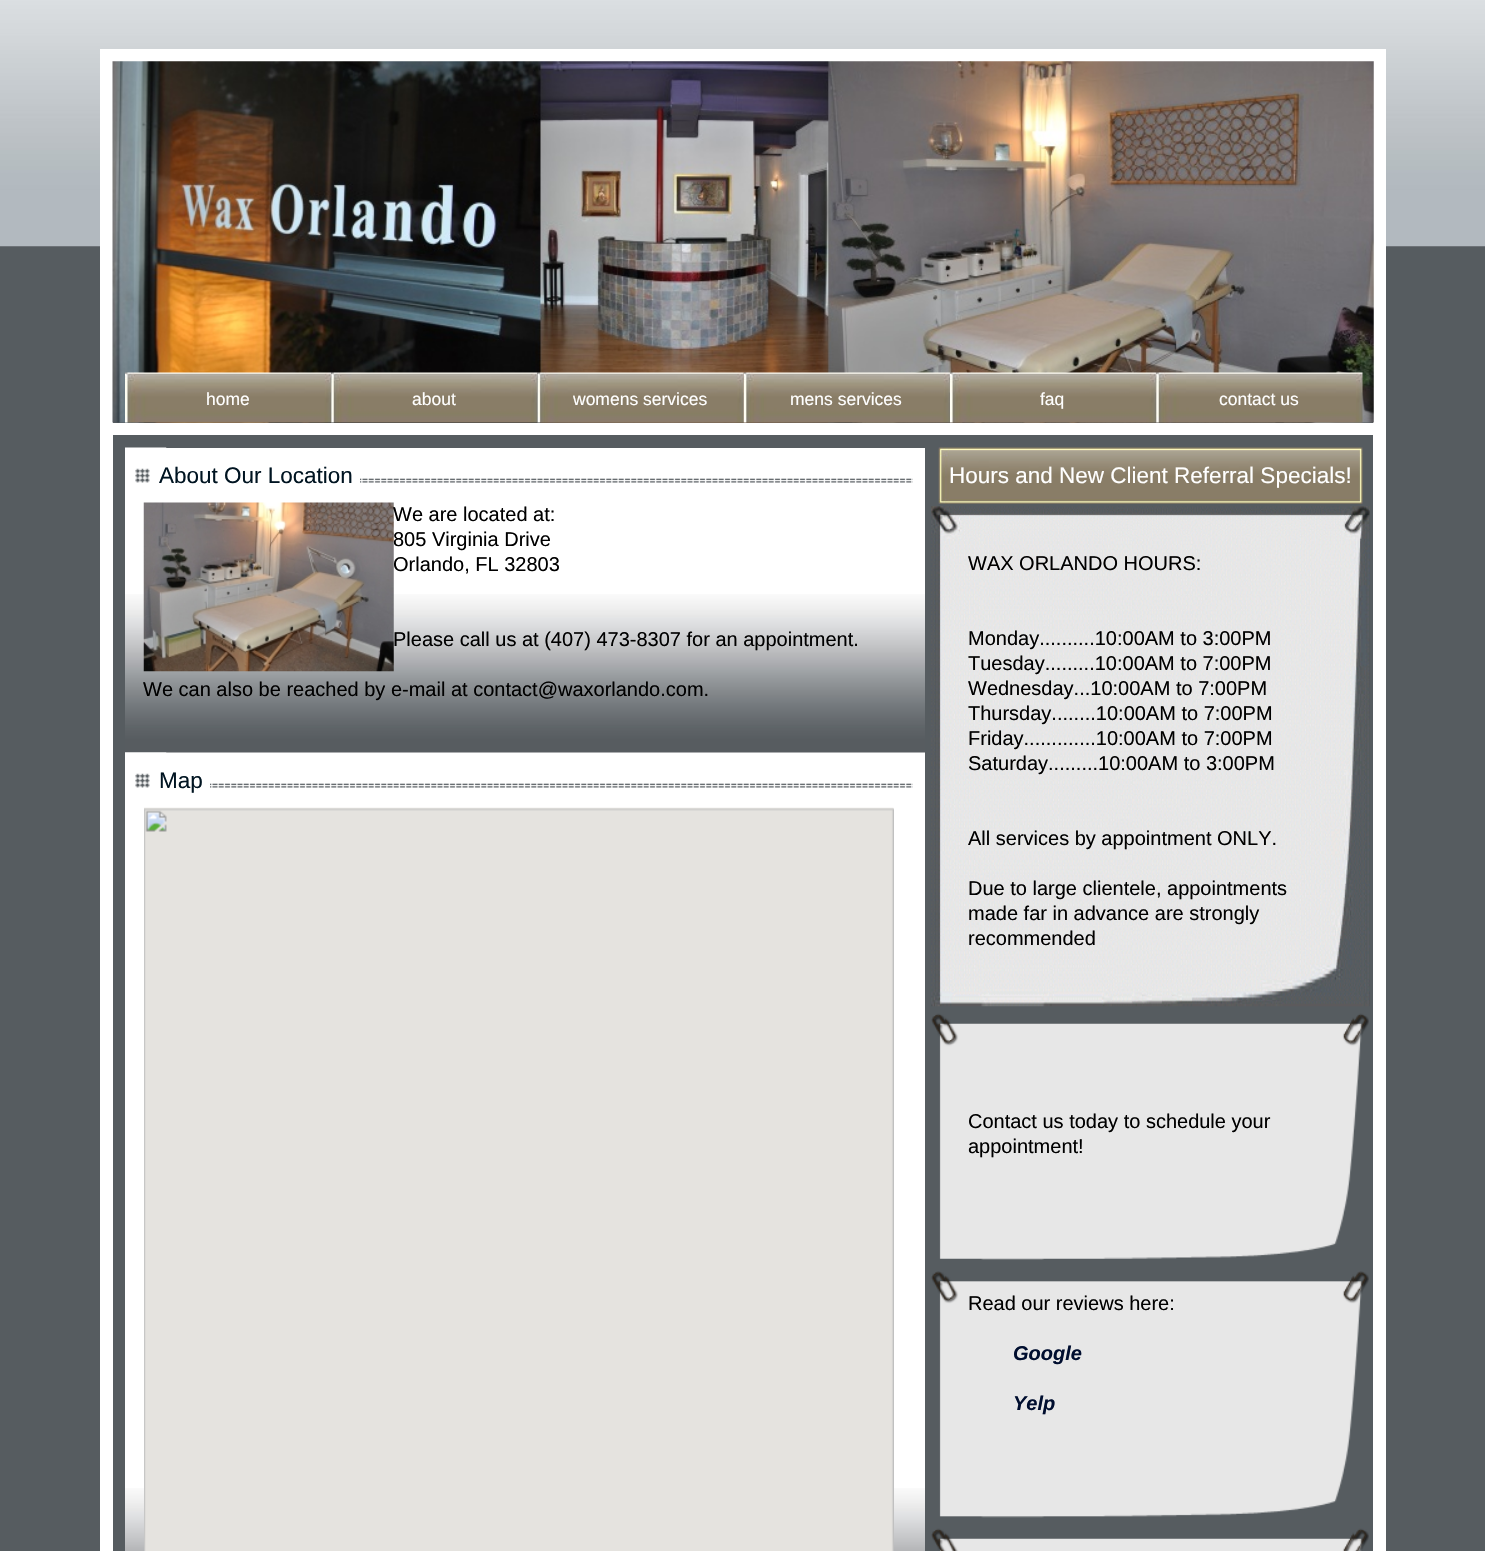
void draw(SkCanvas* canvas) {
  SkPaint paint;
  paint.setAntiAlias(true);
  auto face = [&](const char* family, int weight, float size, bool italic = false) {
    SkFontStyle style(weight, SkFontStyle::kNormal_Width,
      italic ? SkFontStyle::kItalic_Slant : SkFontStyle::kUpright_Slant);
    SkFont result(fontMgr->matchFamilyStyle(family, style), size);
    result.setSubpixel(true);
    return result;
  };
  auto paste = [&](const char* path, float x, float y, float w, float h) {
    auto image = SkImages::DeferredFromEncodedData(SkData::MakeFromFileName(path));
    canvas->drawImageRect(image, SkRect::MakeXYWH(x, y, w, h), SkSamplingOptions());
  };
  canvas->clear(0xff565c60);
  paste("img/1.png", 0, 0, 1485, 247);
  paint.setStroke(true);
  paint.setStrokeWidth(13);
  paint.setColor(0xffffffff);
  canvas->drawRect(SkRect::MakeXYWH(106.5f, 55.5f, 1273, 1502), paint);
  paste("img/2.png", 112, 61, 1263, 362);
  paste("img/3.png", 125, 372, 207, 51);
  paste("img/4.png", 331, 372, 207, 51);
  paste("img/5.png", 537, 372, 207, 51);
  paste("img/6.png", 743, 372, 207, 51);
  paste("img/7.png", 950, 372, 207, 51);
  paste("img/8.png", 1156, 372, 207, 51);
  paint.setStroke(false);
  canvas->drawRect(SkRect::MakeXYWH(113, 423, 1260, 12), paint);
  canvas->drawRect(SkRect::MakeXYWH(125, 448, 800, 1040), paint);
  paste("img/9.png", 125, 594, 800, 159);
  paste("img/10.png", 360, 478, 553, 5);
  paste("img/11.png", 125, 447, 42, 36);
  paste("img/12.png", 143, 502, 251, 170);
  paste("img/13.png", 125, 1488, 800, 63);
  paste("img/14.png", 210, 783, 703, 5);
  paste("img/15.png", 125, 752, 42, 36);
  paste("img/16.png", 144, 807, 750, 744);
  paste("img/17.png", 938, 447, 425, 57);
  paste("img/18.png", 931, 506, 439, 501);
  paste("img/19.png", 931, 1013, 438, 247);
  paste("img/20.png", 931, 1271, 438, 247);
  paste("img/21.png", 931, 1528, 438, 23);
  auto f0 = face("Liberation Sans", 400, 17.5f);
  {
    const struct { const char* s; float x, y; } items[] = {
      {"home", 206, 405},
      {"about", 412, 405},
      {"womens services", 573, 405},
      {"mens services", 790, 405},
      {"faq", 1040, 405},
      {"contact us", 1219, 405},
    };
    for (auto [s, x, y] : items) {
      canvas->drawString(s, x, y, f0, paint);
    }
  }
  auto f1 = face("Liberation Sans", 400, 22.5f);
  paint.setColor(0xff001421);
  canvas->drawString("About Our Location", 159, 483, f1, paint);
  auto f2 = face("Liberation Sans", 400, 20);
  paint.setColor(0xff000000);
  {
    const struct { const char* s; float x, y; } items[] = {
      {"We are located at:", 393, 521},
      {"805 Virginia Drive", 393, 546},
      {"Orlando, FL 32803", 393, 571},
      {"Please call us at (407) 473-8307 for an appointment.", 393, 646},
      {"We can also be reached by e-mail at contact@waxorlando.com.", 143, 696},
    };
    for (auto [s, x, y] : items) {
      canvas->drawString(s, x, y, f2, paint);
    }
  }
  paint.setColor(0xff001421);
  canvas->drawString("Map", 159, 788, f1, paint);
  paint.setColor(0xffffffff);
  canvas->drawString("Hours and New Client Referral Specials!", 949, 483, f1, paint);
  paint.setColor(0xff000000);
  {
    const struct { const char* s; float x, y; } items[] = {
      {"WAX ORLANDO HOURS:", 968, 570},
      {"Monday..........10:00AM to 3:00PM", 968, 645},
      {"Tuesday.........10:00AM to 7:00PM", 968, 670},
      {"Wednesday...10:00AM to 7:00PM", 968, 695},
      {"Thursday........10:00AM to 7:00PM", 968, 720},
      {"Friday.............10:00AM to 7:00PM", 968, 745},
      {"Saturday.........10:00AM to 3:00PM", 968, 770},
      {"All services by appointment ONLY.", 968, 845},
      {"Due to large clientele, appointments", 968, 895},
      {"made far in advance are strongly", 968, 920},
      {"recommended", 968, 945},
      {"Contact us today to schedule your", 968, 1128},
      {"appointment!", 968, 1153},
      {"Read our reviews here:", 968, 1310},
    };
    for (auto [s, x, y] : items) {
      canvas->drawString(s, x, y, f2, paint);
    }
  }
  auto f3 = face("Liberation Sans", 700, 20, true);
  paint.setColor(0xff000e2f);
  canvas->drawString("Google", 1013, 1360, f3, paint);
  canvas->drawString("Yelp", 1013, 1410, f3, paint);
}
